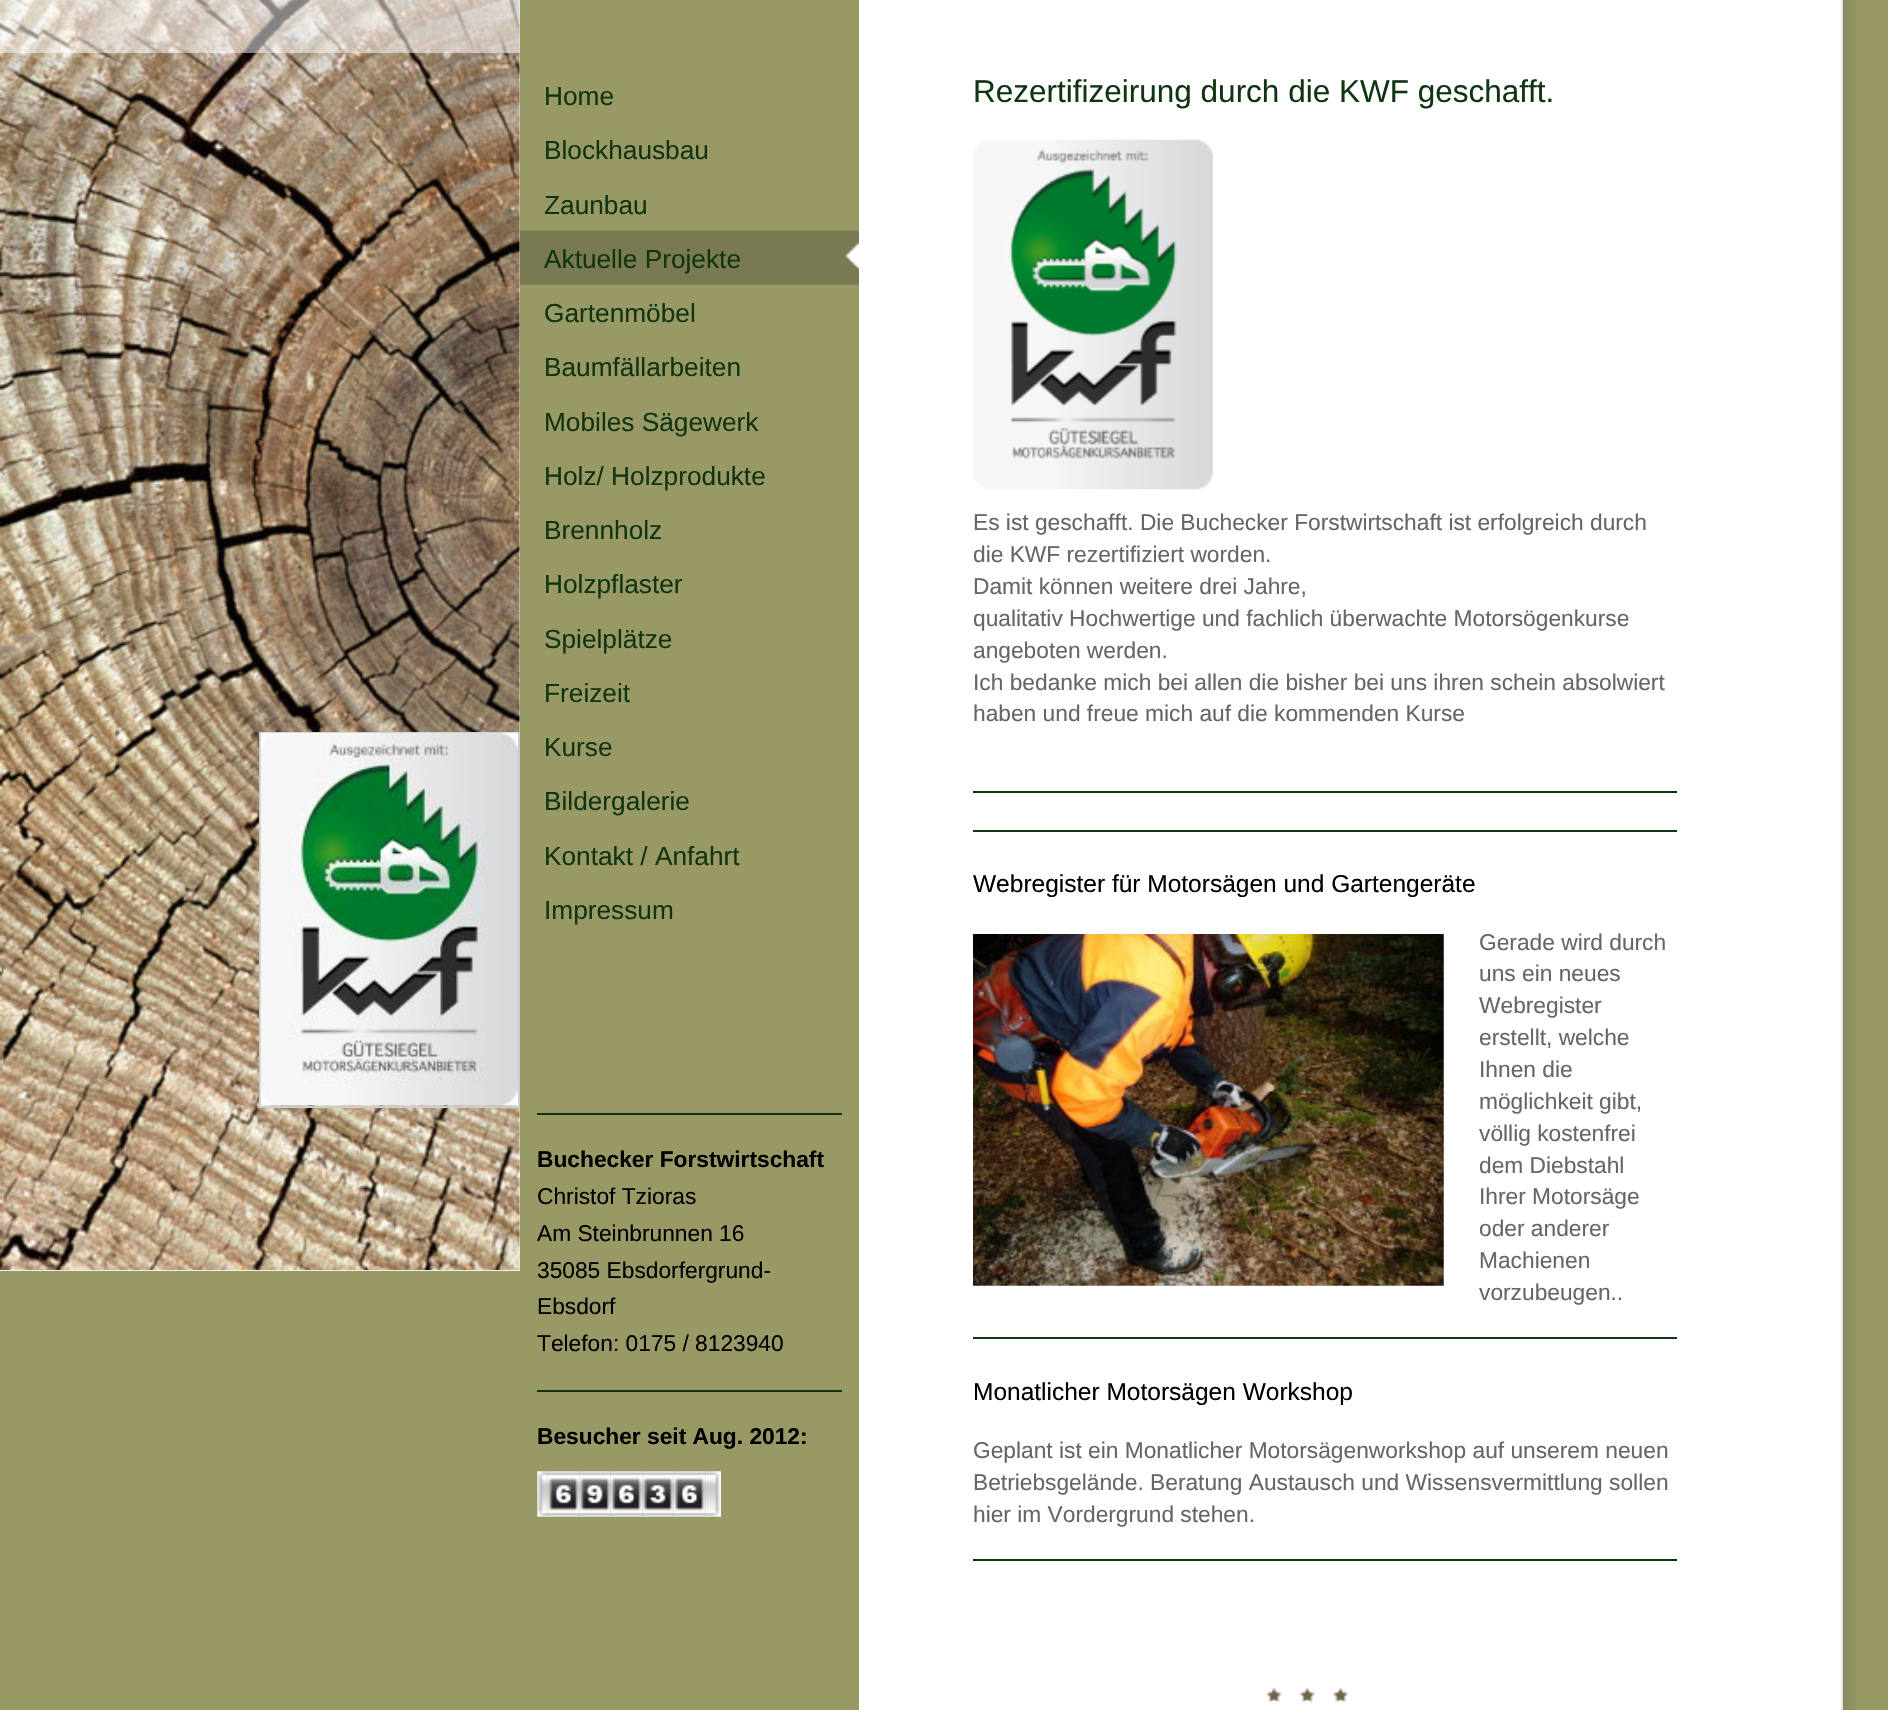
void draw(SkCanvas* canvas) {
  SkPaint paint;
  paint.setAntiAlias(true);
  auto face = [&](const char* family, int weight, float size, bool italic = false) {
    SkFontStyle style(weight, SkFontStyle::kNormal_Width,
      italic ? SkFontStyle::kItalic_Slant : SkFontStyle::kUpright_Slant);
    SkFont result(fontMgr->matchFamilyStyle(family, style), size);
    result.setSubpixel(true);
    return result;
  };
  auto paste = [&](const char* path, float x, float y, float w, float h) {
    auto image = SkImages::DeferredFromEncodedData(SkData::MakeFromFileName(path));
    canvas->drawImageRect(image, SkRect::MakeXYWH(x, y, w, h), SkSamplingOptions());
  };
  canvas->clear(0xff999966);
  paint.setColor(0xffeeeeee);
  canvas->drawRect(SkRect::MakeXYWH(0, 0, 520, 1271), paint);
  paste("img/1.png", 0, 0, 520, 1270);
  paint.setColor(0x80ffffff);
  canvas->drawRect(SkRect::MakeXYWH(0, 0, 520, 53), paint);
  paint.setStroke(true);
  paint.setStrokeWidth(2);
  paint.setColor(0xffcccccc);
  canvas->drawRect(SkRect::MakeXYWH(260, 733, 259, 374), paint);
  paste("img/2.png", 260, 732, 258, 374);
  paint.setStroke(false);
  paint.setColor(0xffffffff);
  canvas->drawRect(SkRect::MakeXYWH(859, 0, 984, 1710), paint);
  paste("img/3.png", 1841, 0, 15, 1710);
  paste("img/4.png", 519, 230, 340, 55);
  paint.setColor(0xff113512);
  canvas->drawRect(SkRect::MakeXYWH(537, 1113, 305, 2), paint);
  canvas->drawRect(SkRect::MakeXYWH(537, 1390, 305, 2), paint);
  paste("img/5.png", 537, 1471, 11, 46);
  paste("img/6.png", 547, 1471, 33, 46);
  paste("img/7.png", 579, 1471, 32, 46);
  paste("img/6.png", 610, 1471, 33, 46);
  paste("img/8.png", 642, 1471, 32, 46);
  paste("img/6.png", 673, 1471, 33, 46);
  paste("img/9.png", 705, 1471, 16, 46);
  paste("img/10.png", 973, 139, 240, 351);
  canvas->drawRect(SkRect::MakeXYWH(973, 791, 704, 2), paint);
  canvas->drawRect(SkRect::MakeXYWH(973, 830, 704, 2), paint);
  paste("img/11.png", 973, 934, 471, 352);
  canvas->drawRect(SkRect::MakeXYWH(973, 1337, 704, 2), paint);
  canvas->drawRect(SkRect::MakeXYWH(973, 1559, 704, 2), paint);
  paste("img/12.png", 1267, 1688, 81, 15);
  auto f0 = face("Liberation Sans", 400, 26.25f);
  {
    const struct { const char* s; float x, y; } items[] = {
      {"Home", 544, 105},
      {"Blockhausbau", 544, 159},
      {"Zaunbau", 544, 214},
      {"Aktuelle Projekte", 544, 268},
      {"Gartenmöbel", 544, 322},
      {"Baumfällarbeiten", 544, 376},
      {"Mobiles Sägewerk", 544, 431},
      {"Holz/ Holzprodukte", 544, 485},
      {"Brennholz", 544, 539},
      {"Holzpflaster", 544, 593},
      {"Spielplätze", 544, 648},
      {"Freizeit", 544, 702},
      {"Kurse", 544, 756},
      {"Bildergalerie", 544, 810},
      {"Kontakt / Anfahrt", 544, 865},
      {"Impressum", 544, 919},
    };
    for (auto [s, x, y] : items) {
      canvas->drawString(s, x, y, f0, paint);
    }
  }
  auto f1 = face("Liberation Sans", 700, 22.75f);
  paint.setColor(0xff000000);
  canvas->drawString("Buchecker Forstwirtschaft", 537, 1167, f1, paint);
  auto f2 = face("Liberation Sans", 400, 22.75f);
  {
    const struct { const char* s; float x, y; } items[] = {
      {"Christof Tzioras", 537, 1204},
      {"Am Steinbrunnen 16", 537, 1241},
      {"35085 Ebsdorfergrund-", 537, 1278},
      {"Ebsdorf", 537, 1314},
      {"Telefon: 0175 / 8123940", 537, 1351},
    };
    for (auto [s, x, y] : items) {
      canvas->drawString(s, x, y, f2, paint);
    }
  }
  canvas->drawString("Besucher seit Aug. 2012:", 537, 1444, f1, paint);
  auto f3 = face("Liberation Sans", 400, 31.5f);
  paint.setColor(0xff113512);
  canvas->drawString("Rezertifizeirung durch die KWF geschafft.", 973, 102, f3, paint);
  paint.setColor(0xff666666);
  {
    const struct { const char* s; float x, y; } items[] = {
      {"Es ist geschafft. Die Buchecker Forstwirtschaft ist erfolgreich durch", 973, 530},
      {"die KWF rezertifiziert worden.", 973, 562},
      {"Damit können weitere drei Jahre,", 973, 594},
      {"qualitativ Hochwertige und fachlich überwachte Motorsögenkurse", 973, 626},
      {"angeboten werden.", 973, 658},
      {"Ich bedanke mich bei allen die bisher bei uns ihren schein absolwiert", 973, 690},
      {"haben und freue mich auf die kommenden Kurse", 973, 721},
    };
    for (auto [s, x, y] : items) {
      canvas->drawString(s, x, y, f2, paint);
    }
  }
  auto f4 = face("Liberation Sans", 400, 24.5f);
  paint.setColor(0xff000000);
  canvas->drawString("Webregister für Motorsägen und Gartengeräte", 973, 892, f4, paint);
  paint.setColor(0xff666666);
  {
    const struct { const char* s; float x, y; } items[] = {
      {"Gerade wird durch", 1479, 950},
      {"uns ein neues", 1479, 981},
      {"Webregister", 1479, 1013},
      {"erstellt, welche", 1479, 1045},
      {"Ihnen die", 1479, 1077},
      {"möglichkeit gibt,", 1479, 1109},
      {"völlig kostenfrei", 1479, 1141},
      {"dem Diebstahl", 1479, 1173},
      {"Ihrer Motorsäge", 1479, 1204},
      {"oder anderer", 1479, 1236},
      {"Machienen", 1479, 1268},
      {"vorzubeugen..", 1479, 1300},
    };
    for (auto [s, x, y] : items) {
      canvas->drawString(s, x, y, f2, paint);
    }
  }
  paint.setColor(0xff000000);
  canvas->drawString("Monatlicher Motorsägen Workshop", 973, 1400, f4, paint);
  paint.setColor(0xff666666);
  {
    const struct { const char* s; float x, y; } items[] = {
      {"Geplant ist ein Monatlicher Motorsägenworkshop auf unserem neuen", 973, 1458},
      {"Betriebsgelände. Beratung Austausch und Wissensvermittlung sollen", 973, 1490},
      {"hier im Vordergrund stehen.", 973, 1522},
    };
    for (auto [s, x, y] : items) {
      canvas->drawString(s, x, y, f2, paint);
    }
  }
}
